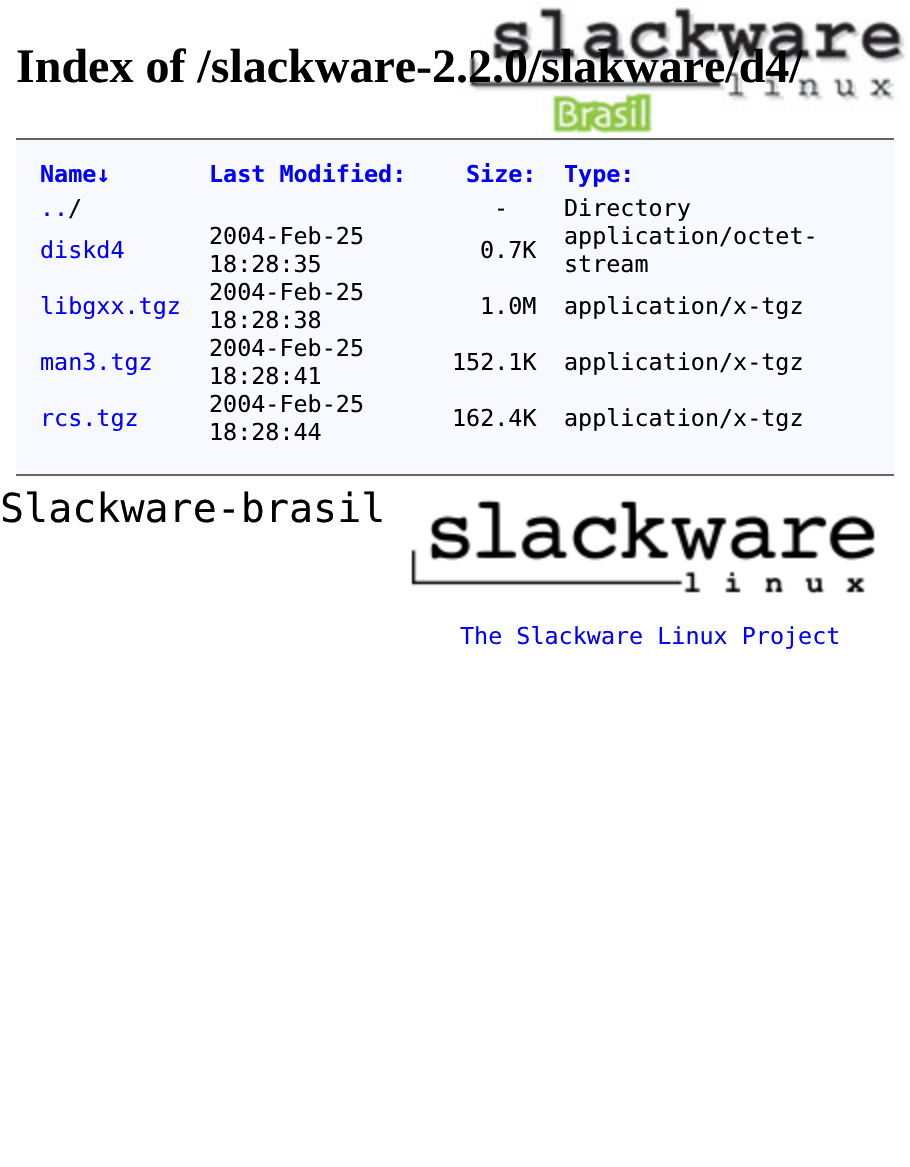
void draw(SkCanvas* canvas) {
  SkPaint paint;
  paint.setAntiAlias(true);
  auto face = [&](const char* family, int weight, float size, bool italic = false) {
    SkFontStyle style(weight, SkFontStyle::kNormal_Width,
      italic ? SkFontStyle::kItalic_Slant : SkFontStyle::kUpright_Slant);
    SkFont result(fontMgr->matchFamilyStyle(family, style), size);
    result.setSubpixel(true);
    return result;
  };
  auto paste = [&](const char* path, float x, float y, float w, float h) {
    auto image = SkImages::DeferredFromEncodedData(SkData::MakeFromFileName(path));
    canvas->drawImageRect(image, SkRect::MakeXYWH(x, y, w, h), SkSamplingOptions());
  };
  canvas->clear(0xffffffff);
  paste("img/1.png", 462, 1, 446, 141);
  {
    const struct { float x, y, w, h; SkColor color; } items[] = {
      {16, 140, 878, 334, 0xfff8f8ff},
      {16, 138, 878, 2, 0xff646464},
      {16, 474, 878, 2, 0xff646464},
    };
    for (auto [x, y, w, h, color] : items) {
      paint.setColor(color);
      canvas->drawRect(SkRect::MakeXYWH(x, y, w, h), paint);
    }
  }
  paste("img/2.png", 411, 491, 464, 104);
  auto f0 = face("Liberation Serif", 700, 48);
  paint.setColor(0xff000000);
  canvas->drawString("Index of /slackware-2.2.0/slakware/d4/", 16, 82, f0, paint);
  auto f1 = face("DejaVu Sans Mono", 700, 23.4f);
  paint.setColor(0xff0000ff);
  {
    const struct { const char* s; float x, y; } items[] = {
      {"Name↓", 40, 182},
      {"Last Modified:", 209, 182},
      {"Size:", 466, 182},
      {"Type:", 564, 182},
    };
    for (auto [s, x, y] : items) {
      canvas->drawString(s, x, y, f1, paint);
    }
  }
  auto f2 = face("DejaVu Sans Mono", 400, 23.4f);
  canvas->drawString("..", 40, 216, f2, paint);
  paint.setColor(0xff000000);
  {
    const struct { const char* s; float x, y; } items[] = {
      {"/", 68, 216},
      {"-", 494, 216},
      {"Directory", 564, 216},
    };
    for (auto [s, x, y] : items) {
      canvas->drawString(s, x, y, f2, paint);
    }
  }
  paint.setColor(0xff0000ff);
  canvas->drawString("diskd4", 40, 258, f2, paint);
  paint.setColor(0xff000000);
  {
    const struct { const char* s; float x, y; } items[] = {
      {"2004-Feb-25", 209, 244},
      {"18:28:35", 209, 272},
      {"0.7K", 480, 258},
      {"application/octet-", 564, 244},
      {"stream", 564, 272},
    };
    for (auto [s, x, y] : items) {
      canvas->drawString(s, x, y, f2, paint);
    }
  }
  paint.setColor(0xff0000ff);
  canvas->drawString("libgxx.tgz", 40, 314, f2, paint);
  paint.setColor(0xff000000);
  {
    const struct { const char* s; float x, y; } items[] = {
      {"2004-Feb-25", 209, 300},
      {"18:28:38", 209, 328},
      {"1.0M", 480, 314},
      {"application/x-tgz", 564, 314},
    };
    for (auto [s, x, y] : items) {
      canvas->drawString(s, x, y, f2, paint);
    }
  }
  paint.setColor(0xff0000ff);
  canvas->drawString("man3.tgz", 40, 370, f2, paint);
  paint.setColor(0xff000000);
  {
    const struct { const char* s; float x, y; } items[] = {
      {"2004-Feb-25", 209, 356},
      {"18:28:41", 209, 384},
      {"152.1K", 452, 370},
      {"application/x-tgz", 564, 370},
    };
    for (auto [s, x, y] : items) {
      canvas->drawString(s, x, y, f2, paint);
    }
  }
  paint.setColor(0xff0000ff);
  canvas->drawString("rcs.tgz", 40, 426, f2, paint);
  paint.setColor(0xff000000);
  {
    const struct { const char* s; float x, y; } items[] = {
      {"2004-Feb-25", 209, 412},
      {"18:28:44", 209, 440},
      {"162.4K", 452, 426},
      {"application/x-tgz", 564, 426},
    };
    for (auto [s, x, y] : items) {
      canvas->drawString(s, x, y, f2, paint);
    }
  }
  auto f3 = face("DejaVu Sans Mono", 400, 40);
  canvas->drawString("Slackware-brasil", 0, 522, f3, paint);
  paint.setColor(0xff0000ff);
  canvas->drawString("The Slackware Linux Project", 460, 644, f2, paint);
}
